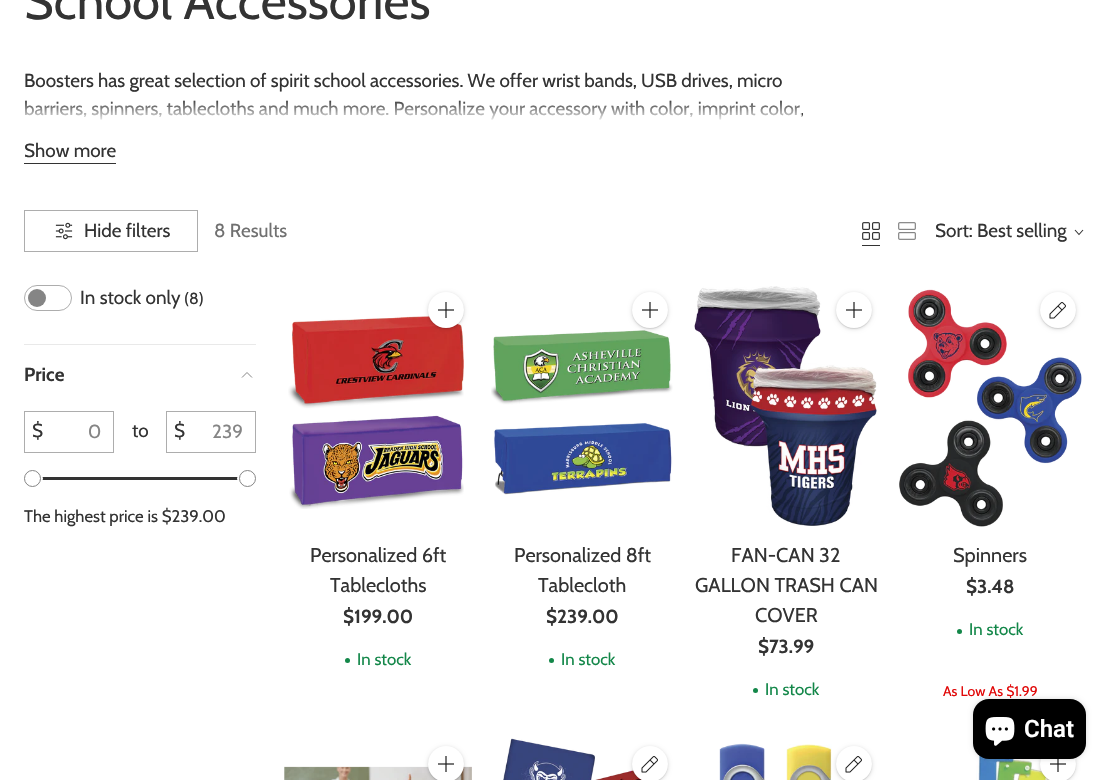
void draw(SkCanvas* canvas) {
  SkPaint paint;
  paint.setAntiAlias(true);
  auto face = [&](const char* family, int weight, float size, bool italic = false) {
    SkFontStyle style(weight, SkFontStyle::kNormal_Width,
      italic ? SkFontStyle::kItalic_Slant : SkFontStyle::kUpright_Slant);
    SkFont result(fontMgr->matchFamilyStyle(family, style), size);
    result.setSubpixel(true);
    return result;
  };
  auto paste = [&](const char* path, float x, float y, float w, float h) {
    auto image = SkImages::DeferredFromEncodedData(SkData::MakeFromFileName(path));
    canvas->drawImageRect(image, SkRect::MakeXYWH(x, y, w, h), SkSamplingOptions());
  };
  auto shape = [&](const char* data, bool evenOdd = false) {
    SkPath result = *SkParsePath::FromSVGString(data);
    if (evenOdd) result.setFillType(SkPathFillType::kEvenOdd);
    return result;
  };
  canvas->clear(0xffffffff);
  paint.setColor(0xff333333);
  canvas->drawRect(SkRect::MakeXYWH(24, 163, 92, 1), paint);
  paint.setStroke(true);
  paint.setStrokeWidth(1);
  paint.setColor(0xffadadad);
  canvas->drawRect(SkRect::MakeXYWH(24.5f, 210.5f, 173, 41), paint);
  paste("img/1.png", 55, 222, 18, 18);
  paste("img/2.png", 862, 222, 18, 18);
  paint.setStroke(false);
  paint.setColor(0xff333333);
  canvas->drawRect(SkRect::MakeXYWH(862, 245, 18, 1), paint);
  paste("img/3.png", 898, 222, 18, 18);
  paint.setStroke(true);
  paint.setStrokeWidth(1.1f);
  canvas->drawPath(shape("M1075 230L1079 234.5L1083 230"), paint);
  paint.setStrokeWidth(1);
  paint.setColor(0xffadadad);
  canvas->drawRoundRect(SkRect::MakeXYWH(24.5f, 285.5f, 47, 25), 12.5f, 12.5f, paint);
  paint.setStroke(false);
  paint.setColor(0xff858585);
  canvas->drawCircle(37, 298, 9, paint);
  paint.setColor(0xffe9e9e9);
  canvas->drawRect(SkRect::MakeXYWH(24, 344, 232, 1), paint);
  paint.setStroke(true);
  paint.setColor(0xff858585);
  canvas->drawPath(shape("M242 377.5L247 372.5L252 377.5"), paint);
  paint.setColor(0xffadadad);
  canvas->drawRect(SkRect::MakeXYWH(24.5f, 411.5f, 89, 41), paint);
  canvas->drawRect(SkRect::MakeXYWH(166.5f, 411.5f, 89, 41), paint);
  paint.setStroke(false);
  paint.setColor(0xff333333);
  canvas->drawRect(SkRect::MakeXYWH(42, 477, 196, 3), paint);
  paint.setColor(0xffffffff);
  canvas->drawOval(SkRect::MakeXYWH(22, 470, 21, 17), paint);
  paint.setStroke(true);
  paint.setColor(0xff858585);
  canvas->drawCircle(32.5f, 478.5f, 8, paint);
  paint.setStroke(false);
  paint.setColor(0xffffffff);
  canvas->drawOval(SkRect::MakeXYWH(237, 470, 21, 17), paint);
  paint.setStroke(true);
  paint.setColor(0xff858585);
  canvas->drawCircle(247.5f, 478.5f, 8, paint);
  paste("img/5.png", 288, 316, 176, 193);
  paint.setStroke(false);
  paint.setColor(0x26000000);
  paint.setMaskFilter(SkMaskFilter::MakeBlur(kNormal_SkBlurStyle, 2));
  canvas->drawRoundRect(SkRect::MakeXYWH(428, 293, 36, 36), 18, 18, paint);
  paint.setMaskFilter(nullptr);
  paint.setColor(0x1a000000);
  paint.setMaskFilter(SkMaskFilter::MakeBlur(kNormal_SkBlurStyle, 0.5f));
  canvas->drawRoundRect(SkRect::MakeXYWH(428, 293, 36, 36), 18, 18, paint);
  paint.setMaskFilter(nullptr);
  paint.setColor(0xffffffff);
  canvas->drawCircle(446, 310, 18, paint);
  paste("img/4.png", 438, 302, 16, 16);
  paint.setColor(0xff138749);
  canvas->drawCircle(347.5f, 660.5f, 2.5f, paint);
  paste("img/6.png", 491, 330, 182, 165);
  paint.setColor(0x26000000);
  paint.setMaskFilter(SkMaskFilter::MakeBlur(kNormal_SkBlurStyle, 2));
  canvas->drawRoundRect(SkRect::MakeXYWH(632, 293, 36, 36), 18, 18, paint);
  paint.setMaskFilter(nullptr);
  paint.setColor(0x1a000000);
  paint.setMaskFilter(SkMaskFilter::MakeBlur(kNormal_SkBlurStyle, 0.5f));
  canvas->drawRoundRect(SkRect::MakeXYWH(632, 293, 36, 36), 18, 18, paint);
  paint.setMaskFilter(nullptr);
  paint.setColor(0xffffffff);
  canvas->drawCircle(650, 310, 18, paint);
  paste("img/4.png", 642, 302, 16, 16);
  paint.setColor(0xff138749);
  canvas->drawCircle(551.5f, 660.5f, 2.5f, paint);
  paste("img/7.png", 694, 286, 183, 240);
  paint.setColor(0x26000000);
  paint.setMaskFilter(SkMaskFilter::MakeBlur(kNormal_SkBlurStyle, 2));
  canvas->drawRoundRect(SkRect::MakeXYWH(836, 293, 36, 36), 18, 18, paint);
  paint.setMaskFilter(nullptr);
  paint.setColor(0x1a000000);
  paint.setMaskFilter(SkMaskFilter::MakeBlur(kNormal_SkBlurStyle, 0.5f));
  canvas->drawRoundRect(SkRect::MakeXYWH(836, 293, 36, 36), 18, 18, paint);
  paint.setMaskFilter(nullptr);
  paint.setColor(0xffffffff);
  canvas->drawCircle(854, 310, 18, paint);
  paste("img/4.png", 846, 302, 16, 16);
  paint.setColor(0xff138749);
  canvas->drawCircle(755.5f, 690.5f, 2.5f, paint);
  paste("img/9.png", 899, 289, 183, 238);
  paint.setColor(0x26000000);
  paint.setMaskFilter(SkMaskFilter::MakeBlur(kNormal_SkBlurStyle, 2));
  canvas->drawRoundRect(SkRect::MakeXYWH(1040, 293, 36, 36), 18, 18, paint);
  paint.setMaskFilter(nullptr);
  paint.setColor(0x1a000000);
  paint.setMaskFilter(SkMaskFilter::MakeBlur(kNormal_SkBlurStyle, 0.5f));
  canvas->drawRoundRect(SkRect::MakeXYWH(1040, 293, 36, 36), 18, 18, paint);
  paint.setMaskFilter(nullptr);
  paint.setColor(0xffffffff);
  canvas->drawCircle(1058, 310, 18, paint);
  paste("img/8.png", 1049, 302, 17, 17);
  paint.setColor(0xff138749);
  canvas->drawCircle(959.5f, 631.5f, 2.5f, paint);
  paste("img/10.png", 284, 766, 188, 14);
  paint.setColor(0x26000000);
  paint.setMaskFilter(SkMaskFilter::MakeBlur(kNormal_SkBlurStyle, 2));
  canvas->drawRoundRect(SkRect::MakeXYWH(428, 747, 36, 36), 18, 18, paint);
  paint.setMaskFilter(nullptr);
  paint.setColor(0x1a000000);
  paint.setMaskFilter(SkMaskFilter::MakeBlur(kNormal_SkBlurStyle, 0.5f));
  canvas->drawRoundRect(SkRect::MakeXYWH(428, 747, 36, 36), 18, 18, paint);
  paint.setMaskFilter(nullptr);
  paint.setColor(0xffffffff);
  canvas->drawCircle(446, 764, 18, paint);
  paste("img/4.png", 438, 756, 16, 16);
  paste("img/11.png", 503, 738, 139, 42);
  paint.setColor(0x26000000);
  paint.setMaskFilter(SkMaskFilter::MakeBlur(kNormal_SkBlurStyle, 2));
  canvas->drawRoundRect(SkRect::MakeXYWH(632, 747, 36, 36), 18, 18, paint);
  paint.setMaskFilter(nullptr);
  paint.setColor(0x1a000000);
  paint.setMaskFilter(SkMaskFilter::MakeBlur(kNormal_SkBlurStyle, 0.5f));
  canvas->drawRoundRect(SkRect::MakeXYWH(632, 747, 36, 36), 18, 18, paint);
  paint.setMaskFilter(nullptr);
  paint.setColor(0xffffffff);
  canvas->drawCircle(650, 764, 18, paint);
  paste("img/8.png", 641, 756, 17, 17);
  paste("img/12.png", 719, 743, 113, 37);
  paint.setColor(0x26000000);
  paint.setMaskFilter(SkMaskFilter::MakeBlur(kNormal_SkBlurStyle, 2));
  canvas->drawRoundRect(SkRect::MakeXYWH(836, 747, 36, 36), 18, 18, paint);
  paint.setMaskFilter(nullptr);
  paint.setColor(0x1a000000);
  paint.setMaskFilter(SkMaskFilter::MakeBlur(kNormal_SkBlurStyle, 0.5f));
  canvas->drawRoundRect(SkRect::MakeXYWH(836, 747, 36, 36), 18, 18, paint);
  paint.setMaskFilter(nullptr);
  paint.setColor(0xffffffff);
  canvas->drawCircle(854, 764, 18, paint);
  paste("img/8.png", 845, 756, 17, 17);
  paste("img/13.png", 976, 752, 74, 28);
  paint.setColor(0x26000000);
  paint.setMaskFilter(SkMaskFilter::MakeBlur(kNormal_SkBlurStyle, 2));
  canvas->drawRoundRect(SkRect::MakeXYWH(1040, 747, 36, 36), 18, 18, paint);
  paint.setMaskFilter(nullptr);
  paint.setColor(0x1a000000);
  paint.setMaskFilter(SkMaskFilter::MakeBlur(kNormal_SkBlurStyle, 0.5f));
  canvas->drawRoundRect(SkRect::MakeXYWH(1040, 747, 36, 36), 18, 18, paint);
  paint.setMaskFilter(nullptr);
  paint.setColor(0xffffffff);
  canvas->drawCircle(1058, 764, 18, paint);
  paste("img/14.png", 1050, 759, 16, 13);
  paint.setColor(0x26000000);
  paint.setMaskFilter(SkMaskFilter::MakeBlur(kNormal_SkBlurStyle, 2.5f));
  canvas->drawRoundRect(SkRect::MakeXYWH(973, 699, 113, 60), 16, 16, paint);
  paint.setMaskFilter(nullptr);
  paint.setColor(0xff000000);
  canvas->drawRoundRect(SkRect::MakeXYWH(973, 699, 113, 60), 16, 16, paint);
  paste("img/15.png", 985, 717, 30, 29);
  auto f0 = face("Cabin", 400, 50.75f);
  paint.setColor(0xff333333);
  canvas->drawString("School Accessories", 24, 19, f0, paint);
  auto f1 = face("Cabin", 400, 18.9f);
  canvas->drawString("Boosters has great selection of spirit school accessories. We offer wrist bands, USB drives, micro", 24, 87, f1, paint);
  canvas->drawString("barriers, spinners, tablecloths and much more. Personalize your accessory with color, imprint color,", 24, 115, f1, paint);
  {
    const SkColor colors[] = {0xffffffff, 0x00ffffff};
    const float stops[] = {0, 1};
    const SkPoint ends[] = {{424, 123}, {424, 99}};
    paint.setShader(SkGradientShader::MakeLinear(ends, colors, stops, 2, SkTileMode::kClamp));
    paint.setAlpha(255);
  }
  canvas->drawRect(SkRect::MakeXYWH(25, 101, 777, 19), paint);
  paint.setShader(nullptr);
  paint.setColor(0xff333333);
  canvas->drawString("Show more", 24, 157, f1, paint);
  canvas->drawString("Hide filters", 84, 237, f1, paint);
  paint.setColor(0xff707070);
  canvas->drawString("8 Results", 214, 237, f1, paint);
  paint.setColor(0xff333333);
  canvas->drawString("Sort: Best selling", 935, 237, f1, paint);
  canvas->drawString("In stock only", 80, 304, f1, paint);
  auto f2 = face("Cabin", 400, 16);
  canvas->drawString("(8)", 184, 304, f2, paint);
  auto f3 = face("Cabin", 700, 18.9f);
  canvas->drawString("Price", 24, 381, f3, paint);
  canvas->drawString("$", 32, 437, f1, paint);
  paint.setColor(0xff858585);
  canvas->drawString("0", 88, 438, f1, paint);
  paint.setColor(0xff333333);
  canvas->drawString("to", 132, 437, f1, paint);
  canvas->drawString("$", 174, 437, f1, paint);
  paint.setColor(0xff858585);
  canvas->drawString("239", 212, 438, f1, paint);
  auto f4 = face("Cabin", 400, 16.75f);
  paint.setColor(0xff333333);
  canvas->drawString("The highest price is $239.00", 24, 522, f4, paint);
  auto f5 = face("Cabin", 400, 19.9f);
  canvas->drawString("Personalized 6ft", 310, 562, f5, paint);
  canvas->drawString("Tablecloths", 330, 592, f5, paint);
  canvas->drawString("$199.00", 343, 623, f3, paint);
  paint.setColor(0xff138749);
  canvas->drawString("In stock", 357, 665, f4, paint);
  paint.setColor(0xff333333);
  canvas->drawString("Personalized 8ft", 514, 562, f5, paint);
  canvas->drawString("Tablecloth", 538, 592, f5, paint);
  canvas->drawString("$239.00", 546, 623, f3, paint);
  paint.setColor(0xff138749);
  canvas->drawString("In stock", 561, 665, f4, paint);
  paint.setColor(0xff333333);
  {
    const struct { const char* s; float x, y; } items[] = {
      {"FAN-CAN 32", 731, 562},
      {"GALLON TRASH CAN", 695, 592},
      {"COVER", 755, 622},
    };
    for (auto [s, x, y] : items) {
      canvas->drawString(s, x, y, f5, paint);
    }
  }
  canvas->drawString("$73.99", 758, 653, f3, paint);
  paint.setColor(0xff138749);
  canvas->drawString("In stock", 765, 695, f4, paint);
  paint.setColor(0xff333333);
  canvas->drawString("Spinners", 953, 562, f5, paint);
  canvas->drawString("$3.48", 966, 593, f3, paint);
  paint.setColor(0xff138749);
  canvas->drawString("In stock", 969, 635, f4, paint);
  auto f6 = face("Cabin", 400, 14);
  paint.setColor(0xffe10707);
  canvas->drawString("As Low As $1.99", 943, 696, f6, paint);
  auto f7 = face("Roboto", 600, 24);
  paint.setColor(0xffffffff);
  canvas->drawString("Chat", 1024, 737, f7, paint);
}
